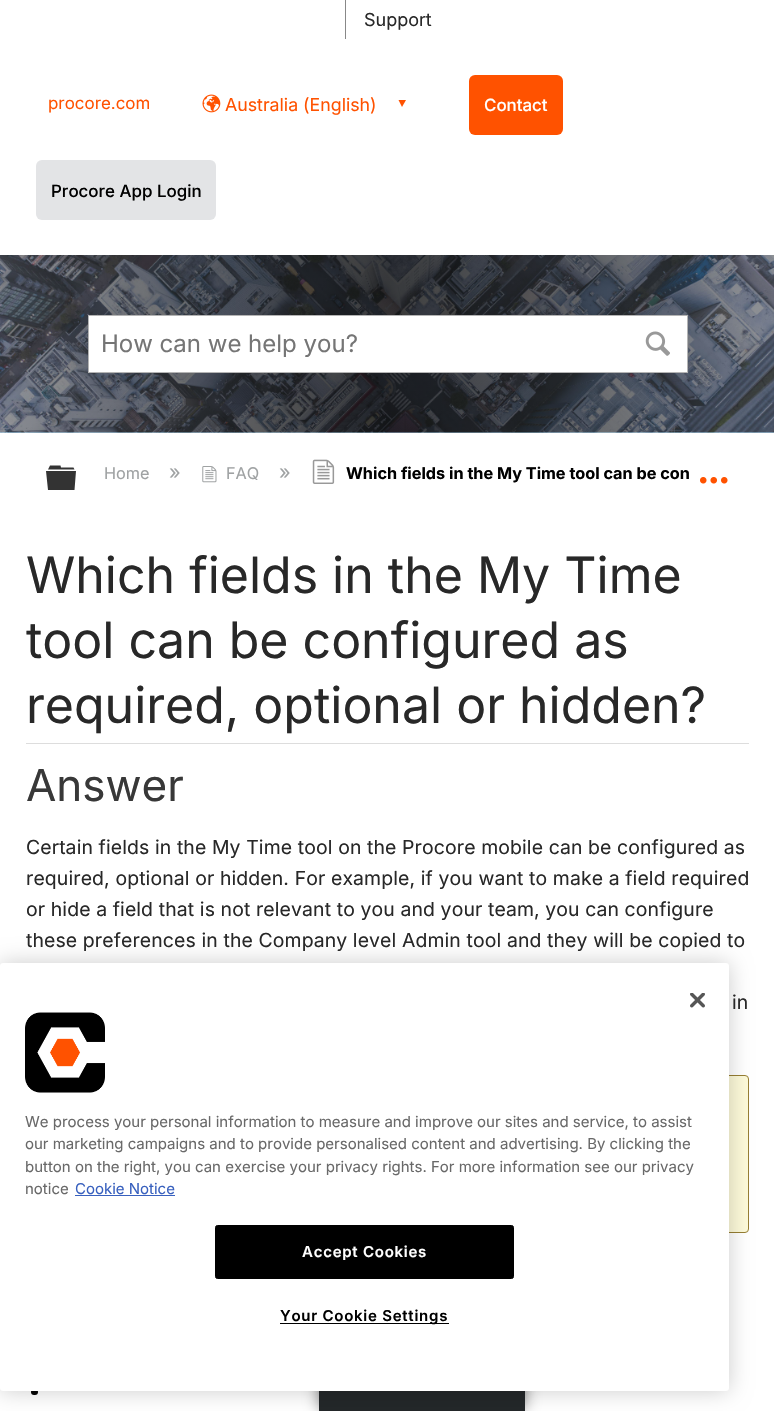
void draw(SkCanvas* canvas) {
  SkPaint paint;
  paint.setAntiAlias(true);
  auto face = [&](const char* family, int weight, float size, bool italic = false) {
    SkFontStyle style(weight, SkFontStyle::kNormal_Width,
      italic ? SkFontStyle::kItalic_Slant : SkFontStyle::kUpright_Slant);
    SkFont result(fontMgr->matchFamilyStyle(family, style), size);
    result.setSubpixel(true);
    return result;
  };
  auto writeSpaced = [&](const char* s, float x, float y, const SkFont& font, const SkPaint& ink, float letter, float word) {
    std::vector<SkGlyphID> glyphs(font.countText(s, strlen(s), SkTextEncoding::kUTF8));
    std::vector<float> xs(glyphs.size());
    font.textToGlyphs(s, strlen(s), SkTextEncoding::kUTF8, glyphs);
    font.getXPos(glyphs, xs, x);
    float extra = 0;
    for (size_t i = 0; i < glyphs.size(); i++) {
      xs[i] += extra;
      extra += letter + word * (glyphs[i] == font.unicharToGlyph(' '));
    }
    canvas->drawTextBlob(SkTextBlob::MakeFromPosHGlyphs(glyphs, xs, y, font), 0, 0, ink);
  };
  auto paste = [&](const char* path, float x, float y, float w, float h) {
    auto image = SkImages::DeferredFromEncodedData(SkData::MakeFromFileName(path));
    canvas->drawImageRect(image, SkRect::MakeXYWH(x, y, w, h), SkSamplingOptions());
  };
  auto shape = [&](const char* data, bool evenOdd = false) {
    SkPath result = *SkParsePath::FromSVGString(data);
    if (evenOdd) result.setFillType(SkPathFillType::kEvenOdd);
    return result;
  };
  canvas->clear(0xffffffff);
  paint.setColor(0xff888888);
  canvas->drawRect(SkRect::MakeXYWH(345, 0, 1, 39), paint);
  paste("img/1.png", 202, 94, 19, 19);
  paint.setColor(0xffff5200);
  canvas->drawPath(shape("M406 100H398.5L402 107Z"), paint);
  canvas->drawRoundRect(SkRect::MakeXYWH(469, 75, 94, 60), 6, 6, paint);
  paint.setColor(0xffe3e4e6);
  canvas->drawRoundRect(SkRect::MakeXYWH(36, 160, 180, 60), 6, 6, paint);
  paint.setColor(0xffb7e5fc);
  canvas->drawRect(SkRect::MakeXYWH(0, 432, 774, 1), paint);
  paste("img/2.png", 0, 255, 774, 178);
  paint.setColor(0xffffffff);
  canvas->drawRect(SkRect::MakeXYWH(88.5f, 315.5f, 599, 57), paint);
  paint.setStroke(true);
  paint.setStrokeWidth(1);
  paint.setColor(0xffb4b4b4);
  canvas->drawRect(SkRect::MakeXYWH(88.5f, 315.5f, 599, 57), paint);
  paste("img/3.png", 645, 331, 25, 25);
  paint.setStroke(false);
  paint.setColor(0xff333333);
  canvas->drawPath(shape("M46 471H76L74.5 490H48ZM73.5 467.5L74.5 469.5H48L50 465.5H60.5L61 467.5Z"), paint);
  paste("img/4.png", 202, 466, 15, 17);
  paste("img/5.png", 312, 459, 23, 25);
  paste("img/6.png", 700, 477, 28, 7);
  paint.setColor(0xffdddddd);
  canvas->drawRect(SkRect::MakeXYWH(26, 743, 723, 1), paint);
  paint.setColor(0xfffdfad9);
  canvas->drawRoundRect(SkRect::MakeXYWH(26.5f, 1075.5f, 722, 157), 3.5f, 3.5f, paint);
  paint.setStroke(true);
  paint.setColor(0xff967e33);
  canvas->drawRoundRect(SkRect::MakeXYWH(26.5f, 1075.5f, 722, 157), 3.5f, 3.5f, paint);
  paint.setStroke(false);
  paint.setColor(0xff040404);
  canvas->drawRoundRect(SkRect::MakeXYWH(31, 1389, 7, 6), 3, 3, paint);
  paint.setColor(0x80000000);
  paint.setMaskFilter(SkMaskFilter::MakeBlur(kNormal_SkBlurStyle, 7.5f));
  canvas->drawRoundRect(SkRect::MakeXYWH(319, 1354, 206, 57), 10, 10, paint);
  paint.setMaskFilter(nullptr);
  paint.setColor(0xff232729);
  canvas->drawRect(SkRect::MakeXYWH(319, 1391, 206, 20), paint);
  paint.setColor(0x33000000);
  paint.setMaskFilter(SkMaskFilter::MakeBlur(kNormal_SkBlurStyle, 11));
  canvas->drawRoundRect(SkRect::MakeXYWH(0, 963, 729, 428), 3, 3, paint);
  paint.setMaskFilter(nullptr);
  paint.setColor(0xffffffff);
  canvas->drawRoundRect(SkRect::MakeXYWH(0, 963, 729, 428), 3, 3, paint);
  paste("img/7.png", 690, 993, 15, 15);
  paste("img/8.png", 25, 1012, 80, 81);
  paint.setColor(0xff3860be);
  canvas->drawRect(SkRect::MakeXYWH(75, 1195, 100, 1), paint);
  paint.setColor(0xff000000);
  canvas->drawRoundRect(SkRect::MakeXYWH(215.5f, 1225.5f, 298, 53), 2, 2, paint);
  paint.setStroke(true);
  canvas->drawRoundRect(SkRect::MakeXYWH(215.5f, 1225.5f, 298, 53), 2, 2, paint);
  paint.setStroke(false);
  canvas->drawRect(SkRect::MakeXYWH(280, 1323, 169, 1), paint);
  auto f0 = face("Inter", 400, 18);
  paint.setColor(0xff282828);
  canvas->drawString("Support", 364, 26, f0, paint);
  auto f1 = face("Inter", 400, 16.9f);
  paint.setColor(0xffff5200);
  canvas->drawString("procore.com", 48, 109, f1, paint);
  auto f2 = face("Inter", 400, 17.75f);
  canvas->drawString("Australia (English)", 225, 111, f2, paint);
  auto f3 = face("Inter", 500, 16.9f);
  paint.setColor(0xffffffff);
  canvas->drawString("Contact", 484, 111, f3, paint);
  paint.setColor(0xff000000);
  canvas->drawString("Procore App Login", 51, 197, f3, paint);
  auto f4 = face("Inter", 400, 24);
  paint.setColor(0xff757575);
  canvas->drawString("How can we help you?", 101, 352, f4, paint);
  auto f5 = face("Inter", 400, 16.25f);
  paint.setColor(0xff9fa2a3);
  canvas->drawString("Home", 104, 479, f5, paint);
  auto f6 = face("Inter", 400, 20);
  canvas->drawString("»", 169, 479, f6, paint);
  canvas->drawString("FAQ", 226, 479, f5, paint);
  canvas->drawString("»", 279, 479, f6, paint);
  auto f7 = face("Inter", 700, 16.25f);
  paint.setColor(0xff000000);
  canvas->drawString("Which fields in the My Time tool can be con", 346, 479, f7, paint);
  auto f8 = face("Inter", 400, 50);
  paint.setColor(0xff282828);
  {
    const struct { const char* s; float x, y; } items[] = {
      {"Which fields in the My Time", 26, 593},
      {"tool can be configured as", 26, 658},
      {"required, optional or hidden?", 26, 723},
    };
    for (auto [s, x, y] : items) {
      canvas->drawString(s, x, y, f8, paint);
    }
  }
  auto f9 = face("Inter", 400, 44);
  paint.setColor(0xff383838);
  canvas->drawString("Answer", 26, 801, f9, paint);
  auto f10 = face("Inter", 400, 19.4f);
  paint.setColor(0xff282828);
  {
    const struct { const char* s; float x, y; } items[] = {
      {"Certain fields in the My Time tool on the Procore mobile can be configured as", 26, 854},
      {"required, optional or hidden. For example, if you want to make a field required", 26, 885},
      {"or hide a field that is not relevant to you and your team, you can configure", 26, 916},
      {"these preferences in the Company level Admin tool and they will be copied to", 26, 947},
      {"in", 732, 1009},
    };
    for (auto [s, x, y] : items) {
      writeSpaced(s, x, y, f10, paint, 0.12f, 0);
    }
  }
  auto f11 = face("Inter", 400, 15);
  paint.setColor(0xff696969);
  {
    const struct { const char* s; float x, y; } items[] = {
      {"We process your personal information to measure and improve our sites and service, to assist", 25, 1127},
      {"our marketing campaigns and to provide personalised content and advertising. By clicking the", 25, 1149},
      {"button on the right, you can exercise your privacy rights. For more information see our privacy", 25, 1172},
      {"notice", 25, 1194},
    };
    for (auto [s, x, y] : items) {
      canvas->drawString(s, x, y, f11, paint);
    }
  }
  paint.setColor(0xff3860be);
  canvas->drawString("Cookie Notice", 75, 1194, f11, paint);
  auto f12 = face("Inter", 600, 15);
  paint.setColor(0xffffffff);
  writeSpaced("Accept Cookies", 302, 1257, f12, paint, 0.75f, 0);
  paint.setColor(0xff000000);
  writeSpaced("Your Cookie Settings", 280, 1321, f12, paint, 0.75f, 0);
}
